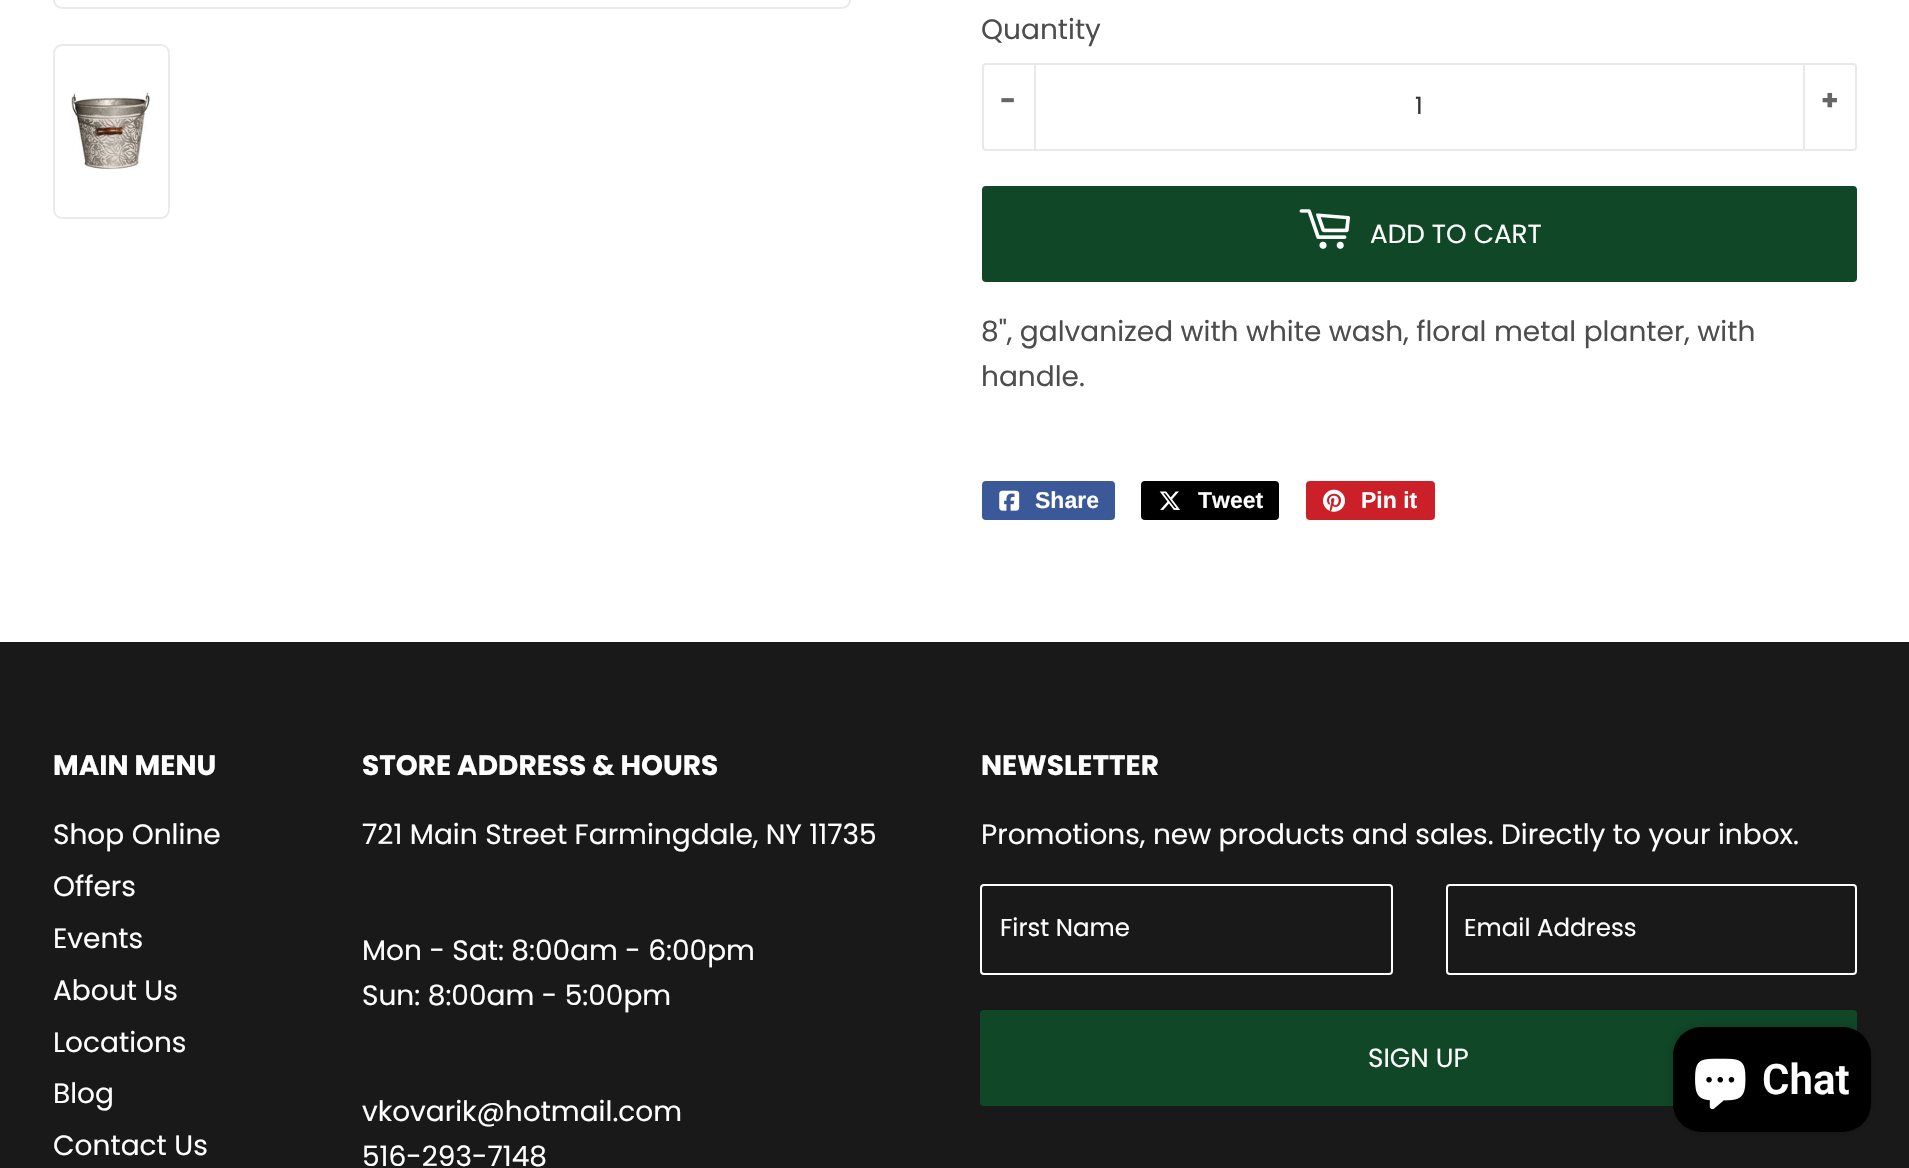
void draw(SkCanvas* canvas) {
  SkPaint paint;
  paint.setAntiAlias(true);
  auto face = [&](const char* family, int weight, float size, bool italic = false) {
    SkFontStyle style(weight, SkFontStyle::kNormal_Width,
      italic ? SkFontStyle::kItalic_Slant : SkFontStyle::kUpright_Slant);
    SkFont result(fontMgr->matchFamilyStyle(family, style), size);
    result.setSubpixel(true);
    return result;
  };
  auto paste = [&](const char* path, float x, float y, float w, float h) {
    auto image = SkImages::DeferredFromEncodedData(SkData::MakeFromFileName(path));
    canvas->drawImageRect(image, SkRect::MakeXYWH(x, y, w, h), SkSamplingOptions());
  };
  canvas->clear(0xffffffff);
  paint.setStroke(true);
  paint.setStrokeWidth(2);
  paint.setColor(0xffeaeaea);
  canvas->drawRoundRect(SkRect::MakeXYWH(54, -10, 796, 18), 8, 8, paint);
  canvas->drawRoundRect(SkRect::MakeXYWH(54, 45, 115, 173), 8, 8, paint);
  paste("img/1.png", 71, 91, 80, 79);
  paint.setColor(0xffe9e9e9);
  canvas->drawRoundRect(SkRect::MakeXYWH(983, 64, 873, 86), 3, 3, paint);
  paint.setStroke(false);
  canvas->drawRect(SkRect::MakeXYWH(1034, 65, 2, 84), paint);
  canvas->drawRect(SkRect::MakeXYWH(1803, 65, 2, 84), paint);
  paint.setColor(0xff0f4727);
  canvas->drawRoundRect(SkRect::MakeXYWH(982, 186, 875, 96), 4, 4, paint);
  paste("img/2.png", 1299, 209, 51, 40);
  paint.setColor(0xff3b5998);
  canvas->drawRoundRect(SkRect::MakeXYWH(982, 481, 133, 39), 4, 4, paint);
  paste("img/3.png", 999, 490, 21, 21);
  paint.setColor(0xff000000);
  canvas->drawRoundRect(SkRect::MakeXYWH(1141, 481, 138, 39), 4, 4, paint);
  paste("img/4.png", 1159, 491, 21, 19);
  paint.setColor(0xffcb2027);
  canvas->drawRoundRect(SkRect::MakeXYWH(1306, 481, 129, 39), 4, 4, paint);
  paste("img/5.png", 1323, 489, 22, 23);
  paint.setColor(0xff191919);
  canvas->drawRect(SkRect::MakeXYWH(0, 642, 1909, 526), paint);
  paint.setStroke(true);
  paint.setColor(0xffffffff);
  canvas->drawRoundRect(SkRect::MakeXYWH(981, 885, 411, 89), 3, 3, paint);
  canvas->drawRoundRect(SkRect::MakeXYWH(1447, 885, 409, 89), 3, 3, paint);
  paint.setStroke(false);
  paint.setColor(0xff0f4727);
  canvas->drawRoundRect(SkRect::MakeXYWH(980, 1010, 877, 96), 4, 4, paint);
  paint.setColor(0x26000000);
  paint.setMaskFilter(SkMaskFilter::MakeBlur(kNormal_SkBlurStyle, 4.5f));
  canvas->drawRoundRect(SkRect::MakeXYWH(1673, 1027, 198, 105), 28, 28, paint);
  paint.setMaskFilter(nullptr);
  paint.setColor(0xff000000);
  canvas->drawRoundRect(SkRect::MakeXYWH(1673, 1027, 198, 105), 28, 28, paint);
  paste("img/6.png", 1695, 1058, 51, 52);
  auto f0 = face("Poppins", 400, 28);
  paint.setColor(0xff4d4d4d);
  canvas->drawString("Quantity", 981, 39, f0, paint);
  auto f1 = face("Poppins", 700, 28);
  paint.setColor(0xff666666);
  canvas->drawString("-", 1000, 110, f1, paint);
  auto f2 = face("Poppins", 400, 24);
  paint.setColor(0xff333333);
  canvas->drawString("1", 1415, 114, f2, paint);
  paint.setColor(0xff666666);
  canvas->drawString("+", 1821, 110, f1, paint);
  auto f3 = face("Poppins", 400, 26.25f);
  paint.setColor(0xffffffff);
  canvas->drawString("ADD TO CART", 1370, 243, f3, paint);
  paint.setColor(0xff4d4d4d);
  canvas->drawString("8\", galvanized with white wash, floral metal planter, with", 981, 341, f0, paint);
  canvas->drawString("handle.", 981, 386, f0, paint);
  auto f4 = face("Liberation Sans", 700, 23);
  paint.setColor(0xffffffff);
  {
    const struct { const char* s; float x, y; } items[] = {
      {"Share", 1035, 508},
      {"Tweet", 1198, 508},
      {"Pin it", 1361, 508},
    };
    for (auto [s, x, y] : items) {
      canvas->drawString(s, x, y, f4, paint);
    }
  }
  canvas->drawString("MAIN MENU", 53, 775, f1, paint);
  {
    const struct { const char* s; float x, y; } items[] = {
      {"Shop Online", 53, 844},
      {"Offers", 53, 896},
      {"Events", 53, 948},
      {"About Us", 53, 1000},
      {"Locations", 53, 1052},
      {"Blog", 53, 1103},
      {"Contact Us", 53, 1155},
    };
    for (auto [s, x, y] : items) {
      canvas->drawString(s, x, y, f0, paint);
    }
  }
  canvas->drawString("STORE ADDRESS & HOURS", 362, 775, f1, paint);
  {
    const struct { const char* s; float x, y; } items[] = {
      {"721 Main Street Farmingdale, NY 11735", 362, 844},
      {"Mon - Sat: 8:00am - 6:00pm", 362, 960},
      {"Sun: 8:00am - 5:00pm", 362, 1005},
      {"vkovarik@hotmail.com", 362, 1121},
      {"516-293-7148", 362, 1166},
    };
    for (auto [s, x, y] : items) {
      canvas->drawString(s, x, y, f0, paint);
    }
  }
  canvas->drawString("NEWSLETTER", 981, 775, f1, paint);
  canvas->drawString("Promotions, new products and sales. Directly to your inbox.", 981, 844, f0, paint);
  auto f5 = face("Poppins", 400, 24.5f);
  canvas->drawString("First Name", 1000, 936, f5, paint);
  canvas->drawString("Email Address", 1464, 936, f5, paint);
  canvas->drawString("SIGN UP", 1368, 1067, f3, paint);
  auto f6 = face("Roboto", 600, 42);
  canvas->drawString("Chat", 1762, 1094, f6, paint);
}
